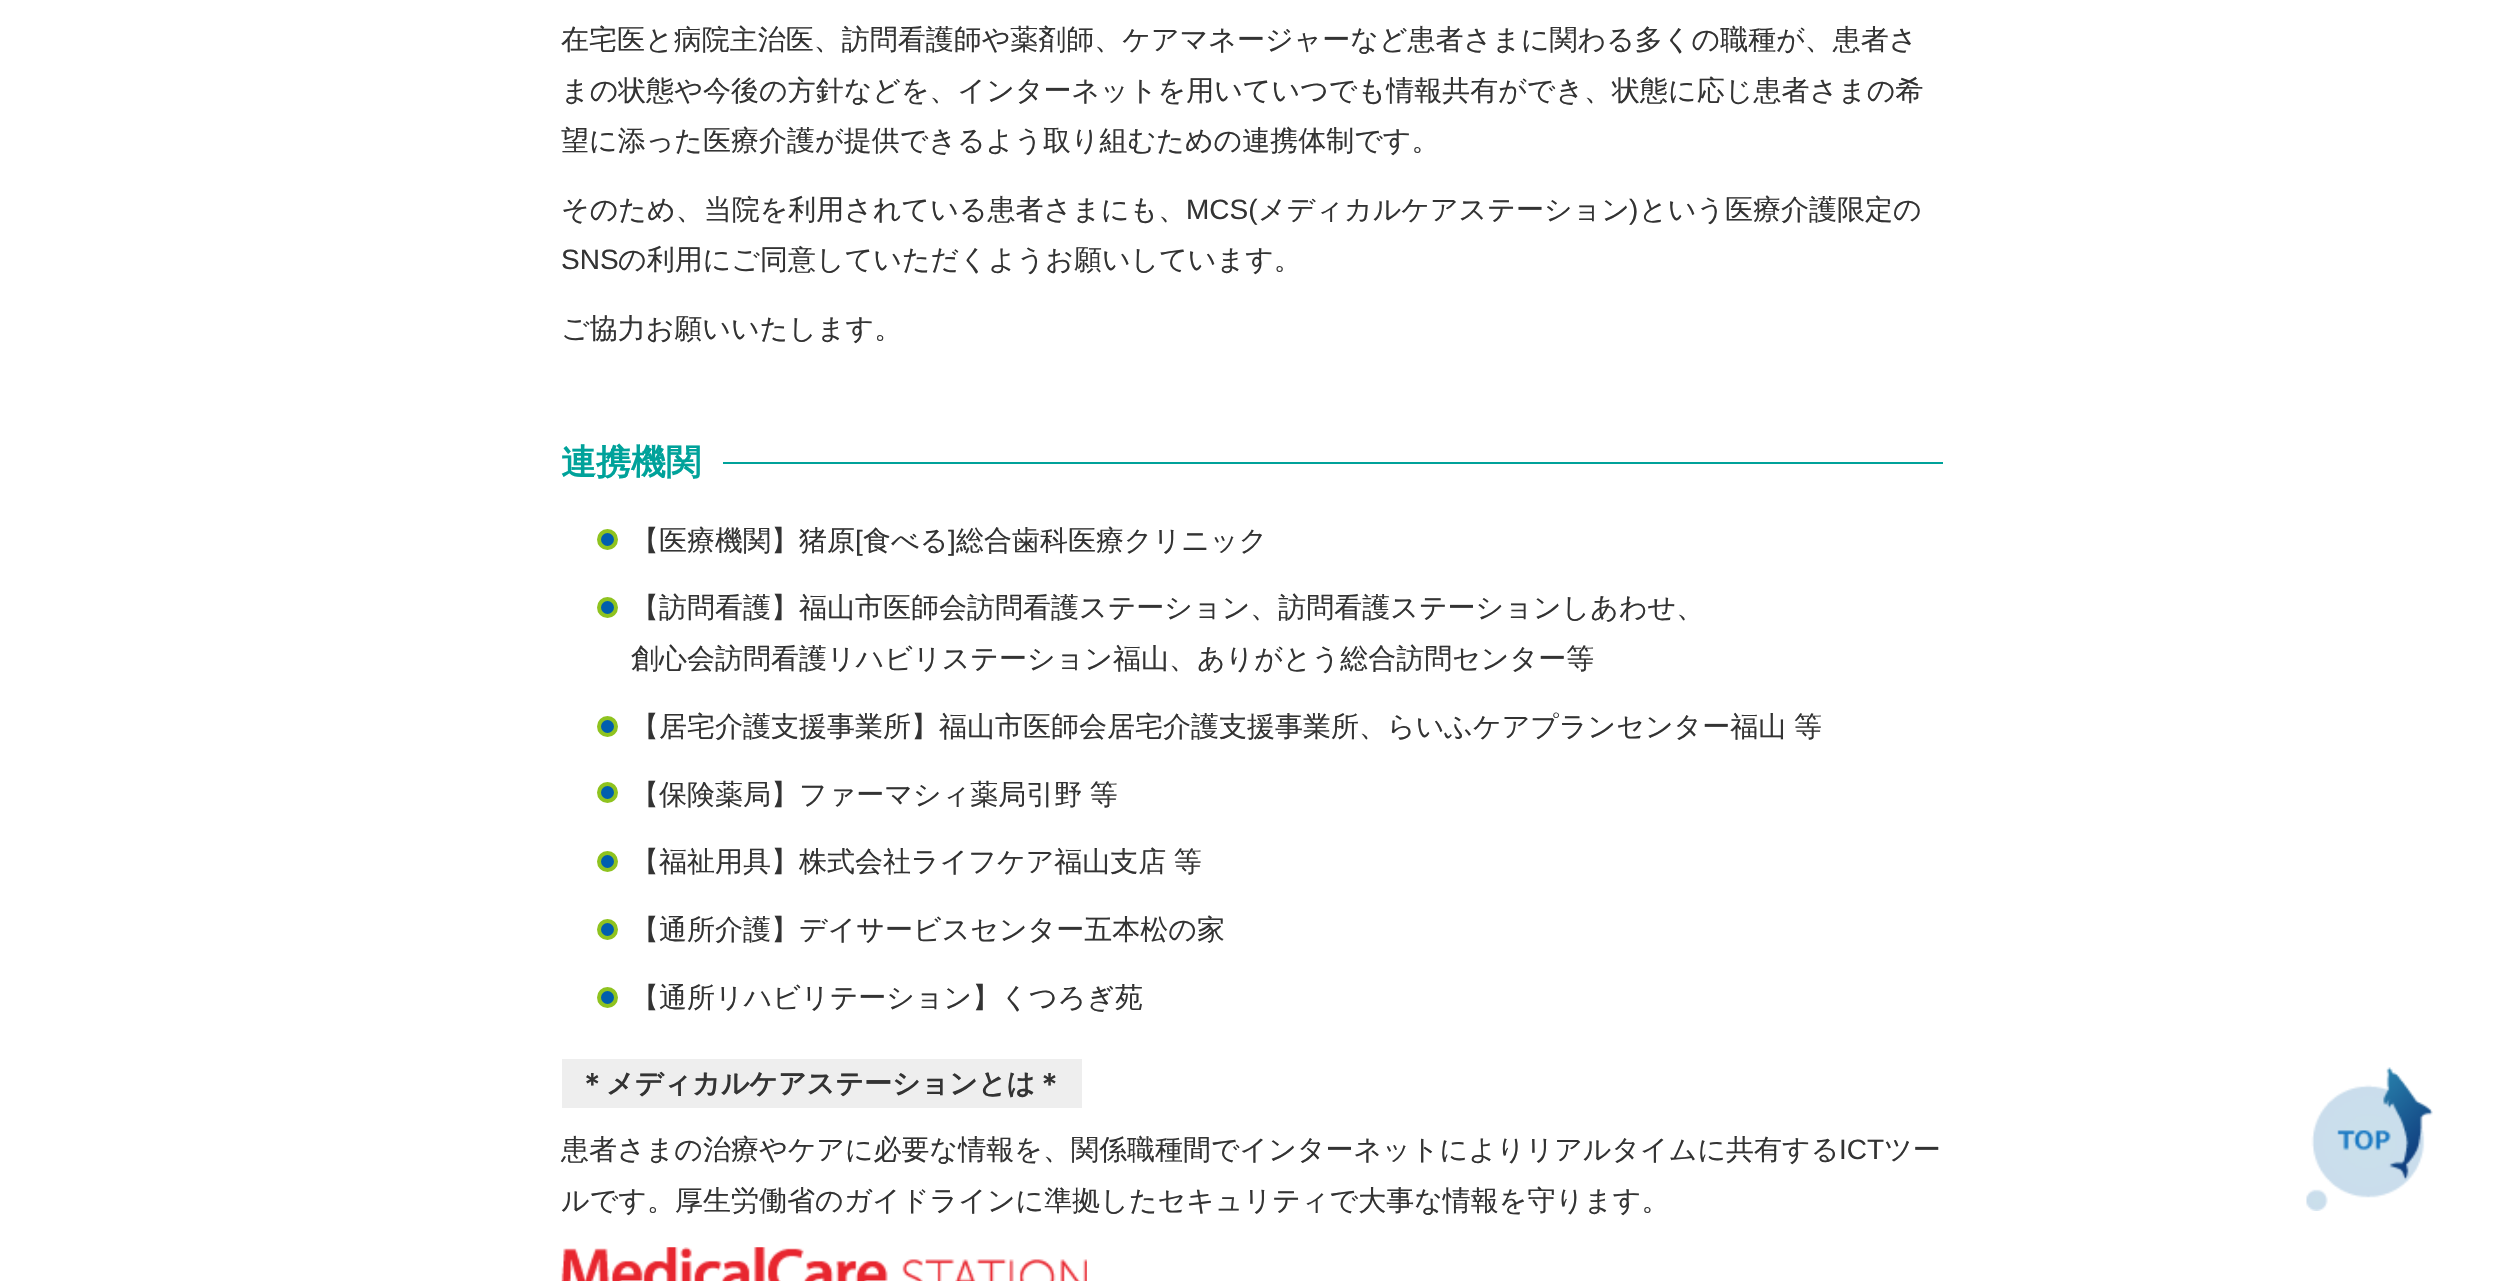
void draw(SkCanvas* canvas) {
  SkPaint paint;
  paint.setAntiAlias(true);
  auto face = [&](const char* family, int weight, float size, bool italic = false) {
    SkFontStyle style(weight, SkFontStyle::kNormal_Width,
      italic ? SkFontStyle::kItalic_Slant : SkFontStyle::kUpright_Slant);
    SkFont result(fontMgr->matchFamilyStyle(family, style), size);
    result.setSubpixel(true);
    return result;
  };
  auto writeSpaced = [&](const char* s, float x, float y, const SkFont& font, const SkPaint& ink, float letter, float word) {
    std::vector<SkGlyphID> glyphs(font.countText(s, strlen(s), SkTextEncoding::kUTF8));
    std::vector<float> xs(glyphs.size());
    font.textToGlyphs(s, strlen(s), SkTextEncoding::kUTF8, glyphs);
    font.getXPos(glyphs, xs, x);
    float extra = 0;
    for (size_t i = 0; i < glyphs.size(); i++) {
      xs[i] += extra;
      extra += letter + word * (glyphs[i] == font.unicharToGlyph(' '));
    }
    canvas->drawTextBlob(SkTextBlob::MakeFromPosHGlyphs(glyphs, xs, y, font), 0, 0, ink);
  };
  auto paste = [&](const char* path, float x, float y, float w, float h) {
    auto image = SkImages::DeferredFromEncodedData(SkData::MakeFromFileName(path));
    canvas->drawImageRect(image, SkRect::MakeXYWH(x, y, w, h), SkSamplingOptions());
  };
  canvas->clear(0xffffffff);
  paint.setColor(0xff00a29a);
  canvas->drawRect(SkRect::MakeXYWH(723, 462, 1220, 2), paint);
  paint.setColor(0xff005eae);
  canvas->drawCircle(607.5f, 539.5f, 8.5f, paint);
  paint.setStroke(true);
  paint.setStrokeWidth(4);
  paint.setColor(0xff8fc31f);
  canvas->drawCircle(607.5f, 539.5f, 8.5f, paint);
  paint.setStroke(false);
  paint.setColor(0xff005eae);
  canvas->drawCircle(607.5f, 607.5f, 8.5f, paint);
  paint.setStroke(true);
  paint.setColor(0xff8fc31f);
  canvas->drawCircle(607.5f, 607.5f, 8.5f, paint);
  paint.setStroke(false);
  paint.setColor(0xff005eae);
  canvas->drawCircle(607.5f, 726.5f, 8.5f, paint);
  paint.setStroke(true);
  paint.setColor(0xff8fc31f);
  canvas->drawCircle(607.5f, 726.5f, 8.5f, paint);
  paint.setStroke(false);
  paint.setColor(0xff005eae);
  canvas->drawCircle(607.5f, 792.5f, 8.5f, paint);
  paint.setStroke(true);
  paint.setColor(0xff8fc31f);
  canvas->drawCircle(607.5f, 792.5f, 8.5f, paint);
  paint.setStroke(false);
  paint.setColor(0xff005eae);
  canvas->drawCircle(607.5f, 861.5f, 8.5f, paint);
  paint.setStroke(true);
  paint.setColor(0xff8fc31f);
  canvas->drawCircle(607.5f, 861.5f, 8.5f, paint);
  paint.setStroke(false);
  paint.setColor(0xff005eae);
  canvas->drawCircle(607.5f, 929.5f, 8.5f, paint);
  paint.setStroke(true);
  paint.setColor(0xff8fc31f);
  canvas->drawCircle(607.5f, 929.5f, 8.5f, paint);
  paint.setStroke(false);
  paint.setColor(0xff005eae);
  canvas->drawCircle(607.5f, 997.5f, 8.5f, paint);
  paint.setStroke(true);
  paint.setColor(0xff8fc31f);
  canvas->drawCircle(607.5f, 997.5f, 8.5f, paint);
  paint.setStroke(false);
  paint.setColor(0xffeeeeee);
  canvas->drawRect(SkRect::MakeXYWH(562, 1059, 520, 49), paint);
  paste("img/1.png", 561, 1247, 526, 34);
  paste("img/2.png", 2306, 1067, 127, 144);
  auto f0 = face("WenQuanYi Zen Hei", 500, 28);
  paint.setColor(0xff333333);
  {
    const struct { const char* s; float x, y; } items[] = {
      {"在宅医と病院主治医、訪問看護師や薬剤師、ケアマネージャーなど患者さまに関わる多くの職種が、患者さ", 561, 49},
      {"まの状態や今後の方針などを、インターネットを用いていつでも情報共有ができ、状態に応じ患者さまの希", 561, 100},
      {"望に添った医療介護が提供できるよう取り組むための連携体制です。", 561, 150},
      {"そのため、当院を利用されている患者さまにも、", 561, 219},
    };
    for (auto [s, x, y] : items) {
      canvas->drawString(s, x, y, f0, paint);
    }
  }
  auto f1 = face("Liberation Sans", 400, 28);
  canvas->drawString("MCS(", 1186, 219, f1, paint);
  canvas->drawString("メディカルケアステーション", 1258, 219, f0, paint);
  canvas->drawString(")", 1629, 219, f1, paint);
  canvas->drawString("という医療介護限定の", 1639, 219, f0, paint);
  canvas->drawString("SNS", 561, 269, f1, paint);
  canvas->drawString("の利用にご同意していただくようお願いしています。", 618, 269, f0, paint);
  canvas->drawString("ご協力お願いいたします。", 561, 338, f0, paint);
  auto f2 = face("WenQuanYi Zen Hei", 700, 35);
  paint.setColor(0xff00a29a);
  canvas->drawString("連携機関", 561, 474, f2, paint);
  paint.setColor(0xff333333);
  canvas->drawString("【医療機関】猪原", 631, 550, f0, paint);
  canvas->drawString("[", 855, 550, f1, paint);
  canvas->drawString("食べる", 863, 550, f0, paint);
  canvas->drawString("]", 948, 550, f1, paint);
  {
    const struct { const char* s; float x, y; } items[] = {
      {"総合歯科医療クリニック", 956, 550},
      {"【訪問看護】福山市医師会訪問看護ステーション、訪問看護ステーションしあわせ、", 631, 617},
      {"創心会訪問看護リハビリステーション福山、ありがとう総合訪問センター等", 631, 668},
      {"【居宅介護支援事業所】福山市医師会居宅介護支援事業所、らいふケアプランセンター福山", 631, 736},
      {"等", 1794, 736},
    };
    for (auto [s, x, y] : items) {
      canvas->drawString(s, x, y, f0, paint);
    }
  }
  writeSpaced("【保険薬局】ファーマシィ薬局引野 等", 631, 804, f0, paint, 0, -1);
  writeSpaced("【福祉用具】株式会社ライフケア福山支店 等", 631, 871, f0, paint, 0, -1);
  canvas->drawString("【通所介護】デイサービスセンター五本松の家", 631, 939, f0, paint);
  canvas->drawString("【通所リハビリテーション】くつろぎ苑", 631, 1007, f0, paint);
  auto f3 = face("WenQuanYi Zen Hei", 700, 28);
  canvas->drawString("＊メディカルケアステーションとは＊", 578, 1093, f3, paint);
  canvas->drawString("患者さまの治療やケアに必要な情報を、関係職種間でインターネットによりリアルタイムに共有する", 561, 1159, f0, paint);
  canvas->drawString("ICT", 1839, 1159, f1, paint);
  canvas->drawString("ツー", 1884, 1159, f0, paint);
  canvas->drawString("ルです。厚生労働省のガイドラインに準拠したセキュリティで大事な情報を守ります。", 561, 1210, f0, paint);
}
